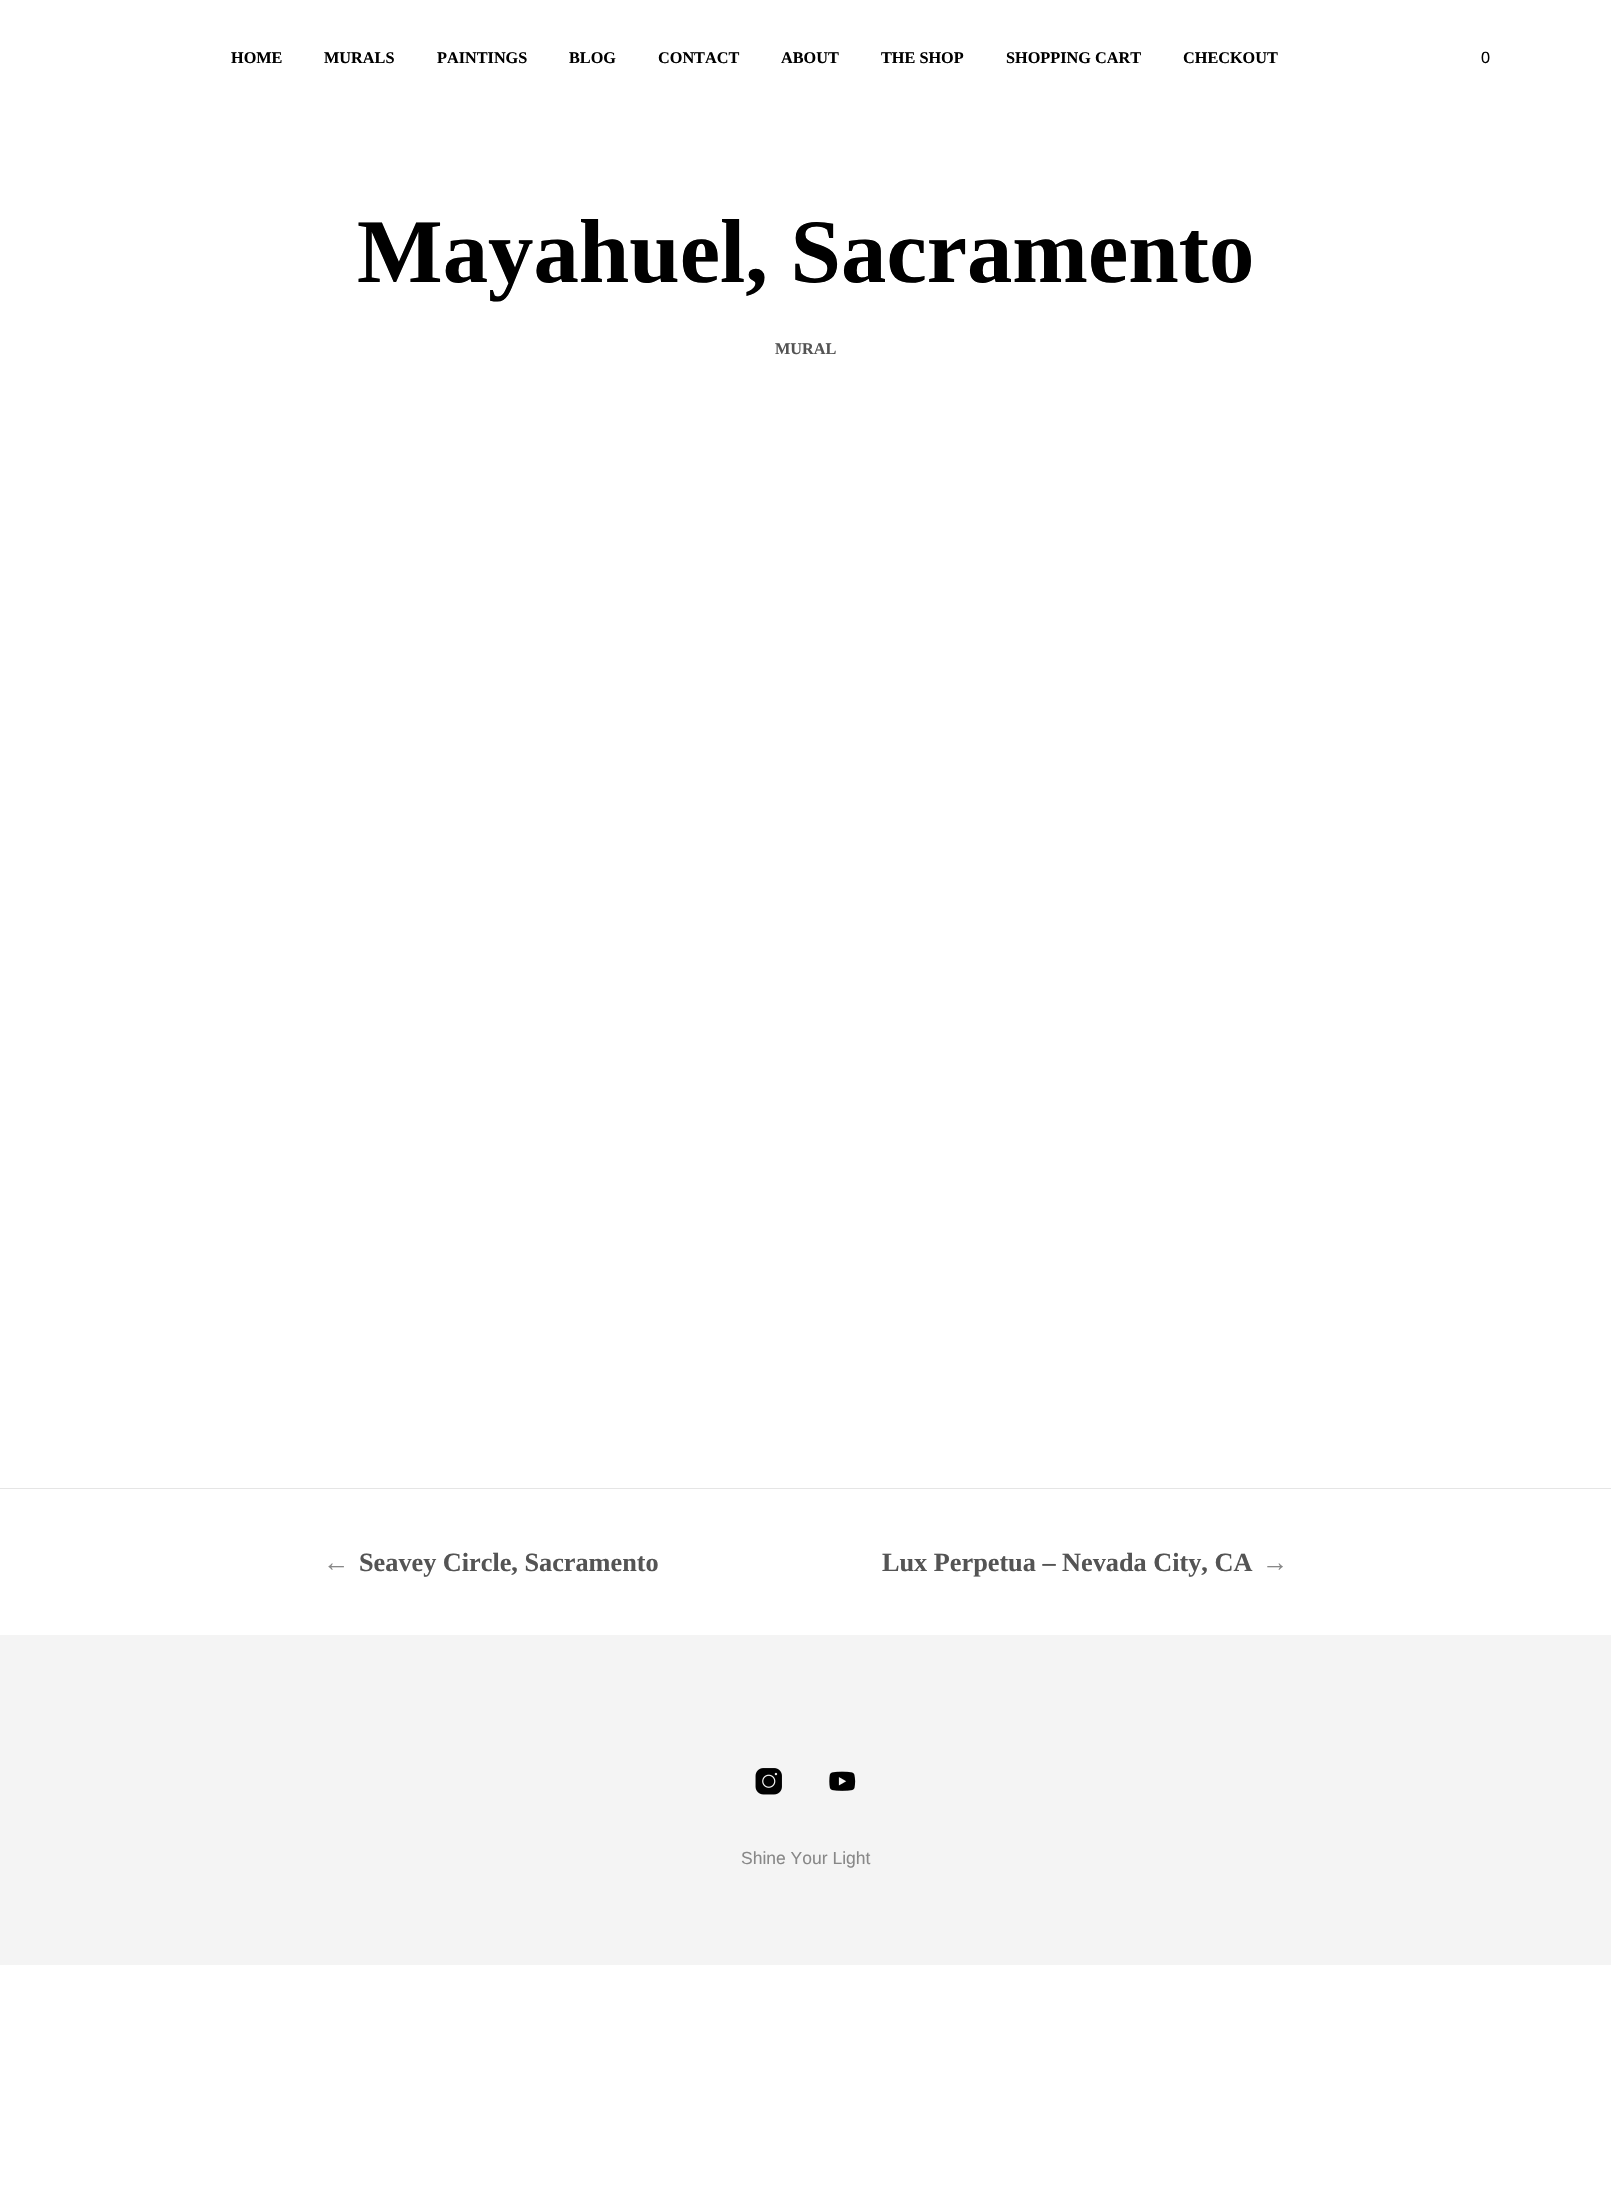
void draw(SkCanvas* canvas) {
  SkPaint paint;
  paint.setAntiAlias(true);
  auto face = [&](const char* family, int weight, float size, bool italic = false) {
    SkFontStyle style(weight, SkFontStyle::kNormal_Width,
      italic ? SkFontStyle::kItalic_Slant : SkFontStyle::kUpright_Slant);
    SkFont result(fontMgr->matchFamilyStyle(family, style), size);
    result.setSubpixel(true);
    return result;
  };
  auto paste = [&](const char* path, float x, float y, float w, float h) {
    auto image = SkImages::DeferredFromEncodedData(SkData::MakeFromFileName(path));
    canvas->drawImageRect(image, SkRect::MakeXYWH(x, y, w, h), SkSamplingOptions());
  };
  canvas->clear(0xffffffff);
  paint.setColor(0xffe5e5e5);
  canvas->drawRect(SkRect::MakeXYWH(0, 1488, 1611, 1), paint);
  paint.setColor(0xfff4f4f4);
  canvas->drawRect(SkRect::MakeXYWH(0, 1635, 1611, 330), paint);
  paste("img/1.png", 755, 1768, 27, 27);
  paste("img/2.png", 829, 1771, 27, 20);
  auto f0 = face("Liberation Serif", 700, 16.25f);
  paint.setColor(0xff000000);
  {
    const struct { const char* s; float x, y; } items[] = {
      {"HOME", 231, 63},
      {"MURALS", 324, 63},
      {"PAINTINGS", 437, 63},
      {"BLOG", 569, 63},
      {"CONTACT", 658, 63},
      {"ABOUT", 781, 63},
      {"THE SHOP", 881, 63},
      {"SHOPPING CART", 1006, 63},
      {"CHECKOUT", 1183, 63},
    };
    for (auto [s, x, y] : items) {
      canvas->drawString(s, x, y, f0, paint);
    }
  }
  auto f1 = face("Liberation Sans", 400, 16.25f);
  canvas->drawString("0", 1481, 63, f1, paint);
  auto f2 = face("Liberation Serif", 700, 90.75f);
  canvas->drawString("Mayahuel, Sacramento", 357, 282, f2, paint);
  paint.setColor(0xff545454);
  canvas->drawString("MURAL", 775, 354, f0, paint);
  auto f3 = face("Liberation Serif", 700, 26.25f);
  paint.setColor(0xff888888);
  canvas->drawString("←", 323, 1571, f3, paint);
  paint.setColor(0xff545454);
  canvas->drawString("Seavey Circle, Sacramento", 359, 1571, f3, paint);
  canvas->drawString("Lux Perpetua – Nevada City, CA", 882, 1571, f3, paint);
  paint.setColor(0xff888888);
  canvas->drawString("→", 1262, 1571, f3, paint);
  auto f4 = face("Liberation Sans", 400, 17.5f);
  canvas->drawString("Shine Your Light", 741, 1864, f4, paint);
}
